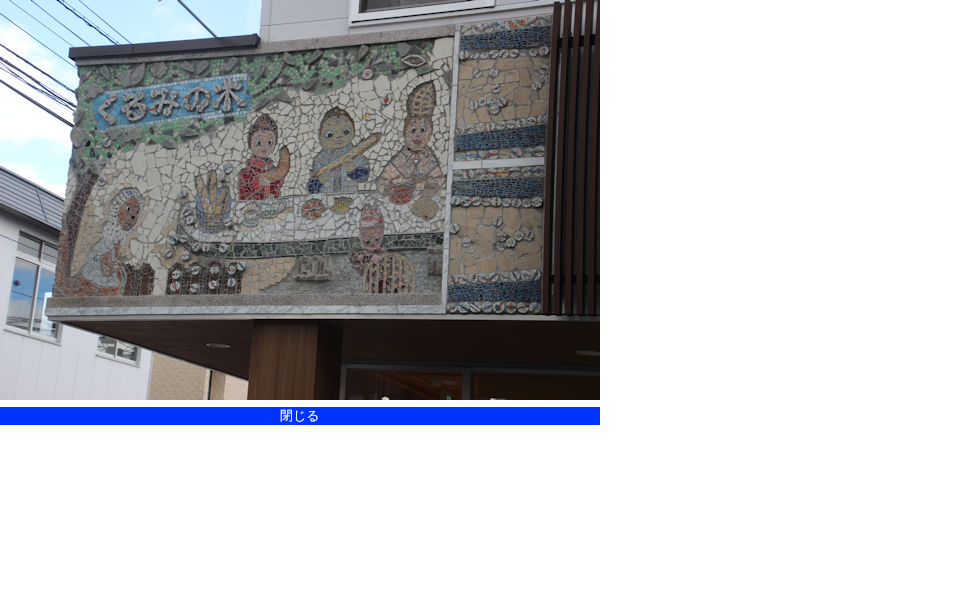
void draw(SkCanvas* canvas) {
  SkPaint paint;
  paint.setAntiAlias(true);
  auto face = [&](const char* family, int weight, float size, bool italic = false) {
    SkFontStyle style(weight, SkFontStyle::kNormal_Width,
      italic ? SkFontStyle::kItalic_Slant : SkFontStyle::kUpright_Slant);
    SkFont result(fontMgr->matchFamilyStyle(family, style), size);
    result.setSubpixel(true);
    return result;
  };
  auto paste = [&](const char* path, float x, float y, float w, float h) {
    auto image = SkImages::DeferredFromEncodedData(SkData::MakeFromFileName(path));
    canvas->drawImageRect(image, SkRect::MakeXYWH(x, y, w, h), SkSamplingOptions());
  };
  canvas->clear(0xffffffff);
  paste("img/1.png", 0, 0, 600, 400);
  paint.setColor(0xff0033ff);
  canvas->drawRect(SkRect::MakeXYWH(0, 407, 600, 18), paint);
  auto f0 = face("WenQuanYi Zen Hei", 500, 13);
  paint.setColor(0xffffffff);
  canvas->drawString("閉じる", 280, 420, f0, paint);
}
